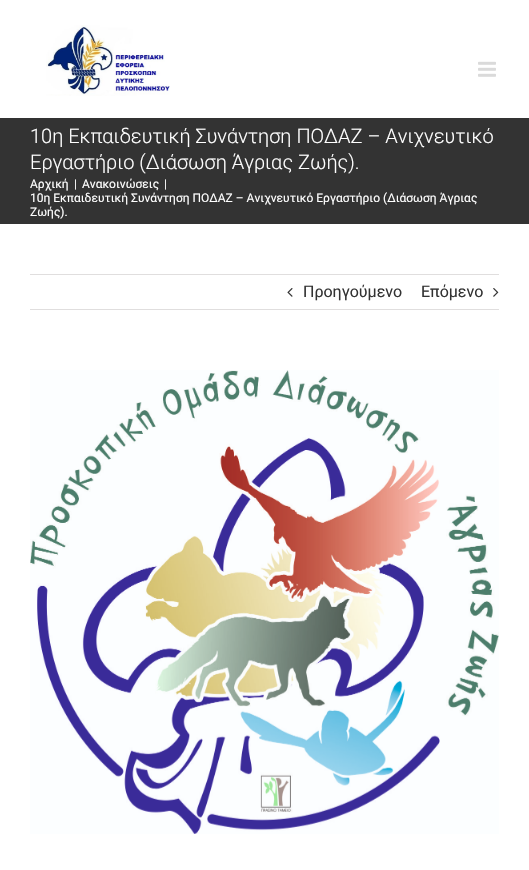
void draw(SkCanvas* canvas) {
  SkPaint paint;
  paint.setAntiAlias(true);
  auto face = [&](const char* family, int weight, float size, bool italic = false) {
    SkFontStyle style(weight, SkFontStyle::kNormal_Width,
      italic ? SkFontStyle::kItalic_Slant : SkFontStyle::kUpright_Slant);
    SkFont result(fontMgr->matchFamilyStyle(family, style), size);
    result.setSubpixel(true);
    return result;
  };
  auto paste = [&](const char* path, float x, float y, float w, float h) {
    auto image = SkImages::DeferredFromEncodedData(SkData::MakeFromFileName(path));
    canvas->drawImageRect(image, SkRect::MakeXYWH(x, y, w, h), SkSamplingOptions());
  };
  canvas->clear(0xffffffff);
  paste("img/1.png", 46, 25, 124, 71);
  paste("img/2.png", 478, 61, 18, 16);
  {
    const struct { float x, y, w, h; SkColor color; } items[] = {
      {0, 118, 529, 106, 0xff333333},
      {30, 274, 469, 1, 0xffe0dede},
      {30, 309, 469, 1, 0xffe0dede},
    };
    for (auto [x, y, w, h, color] : items) {
      paint.setColor(color);
      canvas->drawRect(SkRect::MakeXYWH(x, y, w, h), paint);
    }
  }
  paste("img/3.png", 287, 288, 6, 9);
  paste("img/4.png", 493, 288, 6, 9);
  paste("img/5.png", 30, 370, 469, 464);
  auto f0 = face("Roboto", 300, 20);
  paint.setColor(0xffffffff);
  canvas->drawString("10η Εκπαιδευτική Συνάντηση ΠΟΔΑΖ – Ανιχνευτικό", 30, 143, f0, paint);
  canvas->drawString("Εργαστήριο (Διάσωση Άγριας Ζωής).", 30, 169, f0, paint);
  auto f1 = face("Roboto", 400, 12);
  {
    const struct { const char* s; float x, y; } items[] = {
      {"Αρχική", 30, 188},
      {"|", 74, 188},
      {"Ανακοινώσεις", 82, 188},
      {"|", 164, 188},
      {"10η Εκπαιδευτική Συνάντηση ΠΟΔΑΖ – Ανιχνευτικό Εργαστήριο (Διάσωση Άγριας", 30, 202},
      {"Ζωής).", 30, 216},
    };
    for (auto [s, x, y] : items) {
      canvas->drawString(s, x, y, f1, paint);
    }
  }
  auto f2 = face("Roboto", 400, 16);
  paint.setColor(0xff333333);
  canvas->drawString("Προηγούμενο", 303, 297, f2, paint);
  canvas->drawString("Επόμενο", 421, 297, f2, paint);
}
